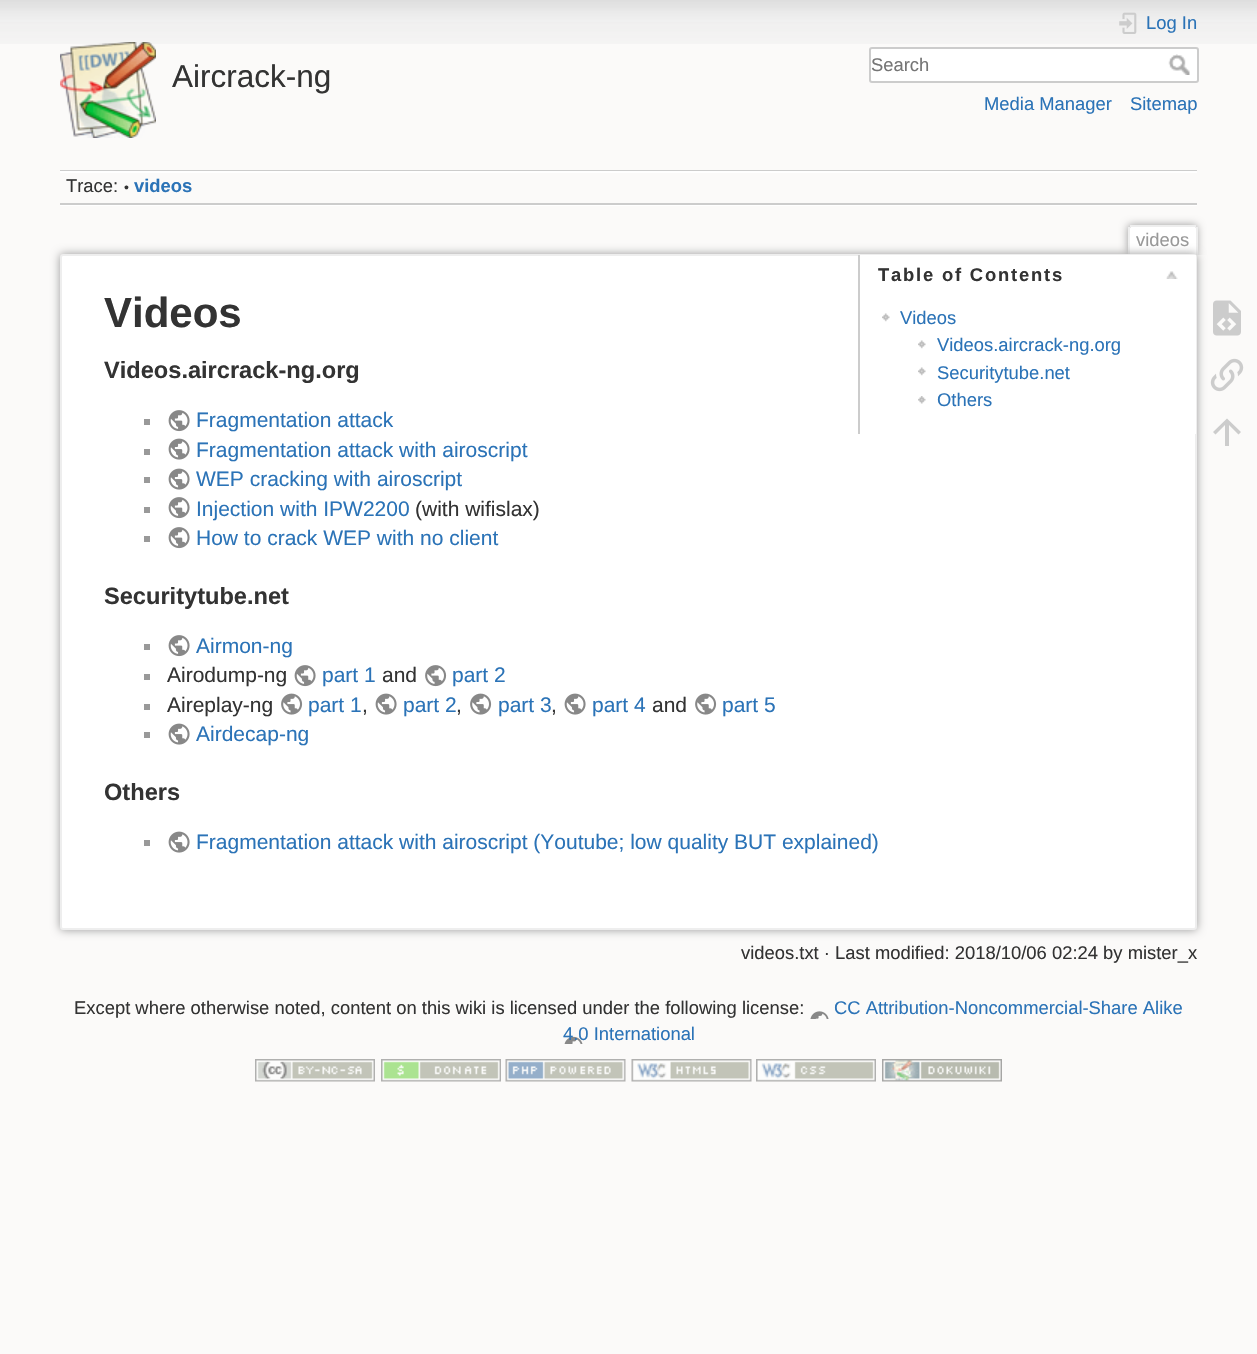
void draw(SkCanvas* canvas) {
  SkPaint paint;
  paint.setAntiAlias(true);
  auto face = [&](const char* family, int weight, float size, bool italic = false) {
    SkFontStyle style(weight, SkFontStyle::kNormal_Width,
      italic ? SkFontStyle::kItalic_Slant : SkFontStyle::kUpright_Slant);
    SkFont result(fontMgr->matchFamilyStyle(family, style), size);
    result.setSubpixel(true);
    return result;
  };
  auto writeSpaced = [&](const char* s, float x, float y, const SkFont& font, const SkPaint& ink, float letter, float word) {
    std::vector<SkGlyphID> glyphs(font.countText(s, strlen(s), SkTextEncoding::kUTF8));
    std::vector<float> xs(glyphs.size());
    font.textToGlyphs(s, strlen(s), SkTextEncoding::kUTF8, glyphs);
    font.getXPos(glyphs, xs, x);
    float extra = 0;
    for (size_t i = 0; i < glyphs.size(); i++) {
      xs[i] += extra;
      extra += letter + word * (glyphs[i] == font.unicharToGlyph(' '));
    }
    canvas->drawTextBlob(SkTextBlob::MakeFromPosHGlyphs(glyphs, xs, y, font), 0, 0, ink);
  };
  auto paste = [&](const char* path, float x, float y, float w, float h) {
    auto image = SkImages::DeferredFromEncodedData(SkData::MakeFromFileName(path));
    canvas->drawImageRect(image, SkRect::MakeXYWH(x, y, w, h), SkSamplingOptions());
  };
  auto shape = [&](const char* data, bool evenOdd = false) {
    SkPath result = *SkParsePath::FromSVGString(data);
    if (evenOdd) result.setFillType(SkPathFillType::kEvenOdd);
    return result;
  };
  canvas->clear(0xfffbfaf9);
  paste("img/1.png", 0, 0, 1257, 44);
  paste("img/2.png", 60, 42, 96, 96);
  paste("img/3.png", 1119, 12, 18, 22);
  paint.setColor(0xffffffff);
  canvas->drawRoundRect(SkRect::MakeXYWH(870, 48, 328, 34), 2, 2, paint);
  paint.setStroke(true);
  paint.setStrokeWidth(2);
  paint.setColor(0xffcccccc);
  canvas->drawRoundRect(SkRect::MakeXYWH(870, 48, 328, 34), 2, 2, paint);
  paste("img/4.png", 1168, 54, 22, 21);
  paint.setStroke(false);
  {
    const struct { float x, y, w, h; SkColor color; } items[] = {
      {60, 170, 1137, 1, 0xffcccccc},
      {60, 205, 1137, 1, 0xffffffff},
      {60, 171, 1137, 2, 0xffffffff},
      {60, 203, 1137, 2, 0xffcccccc},
    };
    for (auto [x, y, w, h, color] : items) {
      paint.setColor(color);
      canvas->drawRect(SkRect::MakeXYWH(x, y, w, h), paint);
    }
  }
  canvas->save();
  canvas->clipRect(SkRect::MakeXYWH(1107, 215, 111, 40));
  paint.setColor(0xff999999);
  paint.setMaskFilter(SkMaskFilter::MakeBlur(kNormal_SkBlurStyle, 4.5f));
  canvas->drawRoundRect(SkRect::MakeXYWH(1128, 225, 69, 30), 3, 3, paint);
  paint.setMaskFilter(nullptr);
  canvas->restore();
  paint.setColor(0xffffffff);
  canvas->drawPath(shape("M1131.5 227H1194.5C1195.5 227 1196 227.5 1196 228.5V255H1130V228.5C1130 227.5 1130.5 227 1131.5 227Z"), paint);
  {
    const struct { float x, y, w, h; SkColor color; } items[] = {
      {1130, 225, 66, 2, 0xffeeeeee},
      {1196, 227, 2, 28, 0xffeeeeee},
      {1128, 227, 2, 28, 0xffeeeeee},
    };
    for (auto [x, y, w, h, color] : items) {
      paint.setColor(color);
      canvas->drawRect(SkRect::MakeXYWH(x, y, w, h), paint);
    }
  }
  paint.setColor(0xff999999);
  paint.setMaskFilter(SkMaskFilter::MakeBlur(kNormal_SkBlurStyle, 5));
  canvas->drawRoundRect(SkRect::MakeXYWH(60, 254, 1137, 676), 3, 3, paint);
  paint.setMaskFilter(nullptr);
  paint.setColor(0xffffffff);
  canvas->drawRoundRect(SkRect::MakeXYWH(61, 255, 1135, 674), 2, 2, paint);
  paint.setStroke(true);
  paint.setColor(0xffeeeeee);
  canvas->drawRoundRect(SkRect::MakeXYWH(61, 255, 1135, 674), 2, 2, paint);
  paint.setStroke(false);
  paint.setColor(0xffffffff);
  canvas->drawRect(SkRect::MakeXYWH(860, 255, 336, 179), paint);
  paint.setColor(0xffcccccc);
  canvas->drawRect(SkRect::MakeXYWH(858, 255, 2, 179), paint);
  paste("img/5.png", 1166, 271, 12, 8);
  paste("img/6.png", 882, 313, 8, 9);
  paste("img/6.png", 918, 340, 8, 9);
  paste("img/6.png", 918, 367, 8, 9);
  paste("img/7.png", 918, 396, 8, 8);
  paint.setColor(0xff999999);
  canvas->drawRect(SkRect::MakeXYWH(144, 419, 6, 6), paint);
  paste("img/8.png", 168, 410, 22, 22);
  canvas->drawRect(SkRect::MakeXYWH(144, 449, 6, 6), paint);
  paste("img/9.png", 168, 438, 22, 22);
  canvas->drawRect(SkRect::MakeXYWH(144, 477, 6, 6), paint);
  paste("img/9.png", 168, 468, 22, 22);
  canvas->drawRect(SkRect::MakeXYWH(144, 507, 6, 6), paint);
  paste("img/8.png", 168, 497, 22, 22);
  canvas->drawRect(SkRect::MakeXYWH(144, 536, 6, 6), paint);
  paste("img/8.png", 168, 527, 22, 22);
  canvas->drawRect(SkRect::MakeXYWH(144, 644, 6, 6), paint);
  paste("img/8.png", 168, 635, 22, 22);
  canvas->drawRect(SkRect::MakeXYWH(144, 674, 6, 6), paint);
  paste("img/8.png", 294, 665, 22, 22);
  paste("img/10.png", 425, 665, 22, 22);
  canvas->drawRect(SkRect::MakeXYWH(144, 704, 6, 6), paint);
  paste("img/11.png", 281, 693, 22, 22);
  paste("img/9.png", 375, 693, 22, 22);
  paste("img/11.png", 470, 693, 22, 22);
  paste("img/9.png", 564, 693, 22, 22);
  paste("img/11.png", 695, 693, 22, 22);
  canvas->drawRect(SkRect::MakeXYWH(144, 732, 6, 6), paint);
  paste("img/9.png", 168, 723, 22, 22);
  canvas->drawRect(SkRect::MakeXYWH(144, 840, 6, 6), paint);
  paste("img/9.png", 168, 831, 22, 22);
  paste("img/12.png", 1213, 300, 28, 36);
  paste("img/13.png", 1210, 358, 34, 34);
  paint.setColor(0xffcccccc);
  canvas->drawPath(shape("M1229 446H1225V425L1215.5 434.5L1213 432L1227 418.5L1241 432L1238.5 434.5L1229 425Z"), paint);
  paste("img/15.png", 255, 1059, 120, 23);
  paste("img/16.png", 381, 1059, 120, 23);
  paste("img/17.png", 505, 1059, 121, 23);
  paste("img/18.png", 631, 1059, 121, 23);
  paste("img/19.png", 756, 1059, 120, 23);
  paste("img/20.png", 882, 1059, 120, 23);
  auto f0 = face("Liberation Sans", 400, 31.5f);
  paint.setColor(0xff333333);
  canvas->drawString("Aircrack-ng", 172, 87, f0, paint);
  auto f1 = face("Liberation Sans", 400, 18.4f);
  paint.setColor(0xff2b73b7);
  canvas->drawString("Log In", 1146, 29, f1, paint);
  paint.setColor(0xff757575);
  canvas->drawString("Search", 871, 71, f1, paint);
  paint.setColor(0xff2b73b7);
  canvas->drawString("Media Manager", 984, 110, f1, paint);
  canvas->drawString("Sitemap", 1130, 110, f1, paint);
  paint.setColor(0xff333333);
  canvas->drawString("Trace:", 66, 192, f1, paint);
  auto f2 = face("Liberation Sans", 400, 14);
  canvas->drawString("•", 124, 192, f2, paint);
  auto f3 = face("Liberation Sans", 700, 18.4f);
  paint.setColor(0xff2b73b7);
  canvas->drawString("videos", 134, 192, f3, paint);
  paint.setColor(0xff999999);
  canvas->drawString("videos", 1136, 246, f1, paint);
  auto f4 = face("Liberation Sans", 700, 42);
  paint.setColor(0xff333333);
  canvas->drawString("Videos", 104, 327, f4, paint);
  writeSpaced("Table of Contents", 878, 281, f3, paint, 1.8f, 0);
  paint.setColor(0xff2b73b7);
  {
    const struct { const char* s; float x, y; } items[] = {
      {"Videos", 900, 324},
      {"Videos.aircrack-ng.org", 937, 351},
      {"Securitytube.net", 937, 379},
      {"Others", 937, 406},
    };
    for (auto [s, x, y] : items) {
      canvas->drawString(s, x, y, f1, paint);
    }
  }
  auto f5 = face("Liberation Sans", 700, 23.6f);
  paint.setColor(0xff333333);
  canvas->drawString("Videos.aircrack-ng.org", 104, 378, f5, paint);
  auto f6 = face("Liberation Sans", 400, 21);
  paint.setColor(0xff2b73b7);
  {
    const struct { const char* s; float x, y; } items[] = {
      {"Fragmentation attack", 196, 427},
      {"Fragmentation attack with airoscript", 196, 457},
      {"WEP cracking with airoscript", 196, 486},
      {"Injection with IPW2200", 196, 516},
    };
    for (auto [s, x, y] : items) {
      canvas->drawString(s, x, y, f6, paint);
    }
  }
  paint.setColor(0xff333333);
  canvas->drawString("(with wifislax)", 415, 516, f6, paint);
  paint.setColor(0xff2b73b7);
  canvas->drawString("How to crack WEP with no client", 196, 545, f6, paint);
  paint.setColor(0xff333333);
  canvas->drawString("Securitytube.net", 104, 604, f5, paint);
  paint.setColor(0xff2b73b7);
  canvas->drawString("Airmon-ng", 196, 653, f6, paint);
  paint.setColor(0xff333333);
  canvas->drawString("Airodump-ng", 167, 682, f6, paint);
  paint.setColor(0xff2b73b7);
  canvas->drawString("part 1", 322, 682, f6, paint);
  paint.setColor(0xff333333);
  canvas->drawString("and", 382, 682, f6, paint);
  paint.setColor(0xff2b73b7);
  canvas->drawString("part 2", 452, 682, f6, paint);
  paint.setColor(0xff333333);
  canvas->drawString("Aireplay-ng", 167, 712, f6, paint);
  paint.setColor(0xff2b73b7);
  canvas->drawString("part 1", 308, 712, f6, paint);
  paint.setColor(0xff333333);
  canvas->drawString(",", 362, 712, f6, paint);
  paint.setColor(0xff2b73b7);
  canvas->drawString("part 2", 403, 712, f6, paint);
  paint.setColor(0xff333333);
  canvas->drawString(",", 456, 712, f6, paint);
  paint.setColor(0xff2b73b7);
  canvas->drawString("part 3", 498, 712, f6, paint);
  paint.setColor(0xff333333);
  canvas->drawString(",", 551, 712, f6, paint);
  paint.setColor(0xff2b73b7);
  canvas->drawString("part 4", 592, 712, f6, paint);
  paint.setColor(0xff333333);
  canvas->drawString("and", 652, 712, f6, paint);
  paint.setColor(0xff2b73b7);
  canvas->drawString("part 5", 722, 712, f6, paint);
  canvas->drawString("Airdecap-ng", 196, 741, f6, paint);
  paint.setColor(0xff333333);
  canvas->drawString("Others", 104, 800, f5, paint);
  paint.setColor(0xff2b73b7);
  canvas->drawString("Fragmentation attack with airoscript (Youtube; low quality BUT explained)", 196, 849, f6, paint);
  paint.setColor(0xff333333);
  canvas->drawString("videos.txt · Last modified: 2018/10/06 02:24 by mister_x", 741, 959, f1, paint);
  canvas->drawString("Except where otherwise noted, content on this wiki is licensed under the following license:", 74, 1014, f1, paint);
  paint.setColor(0xff2b73b7);
  canvas->drawString("CC Attribution-Noncommercial-Share Alike", 834, 1014, f1, paint);
  paste("img/14.png", 564, 1011, 265, 33);
  canvas->drawString("4.0 International", 563, 1040, f1, paint);
}
